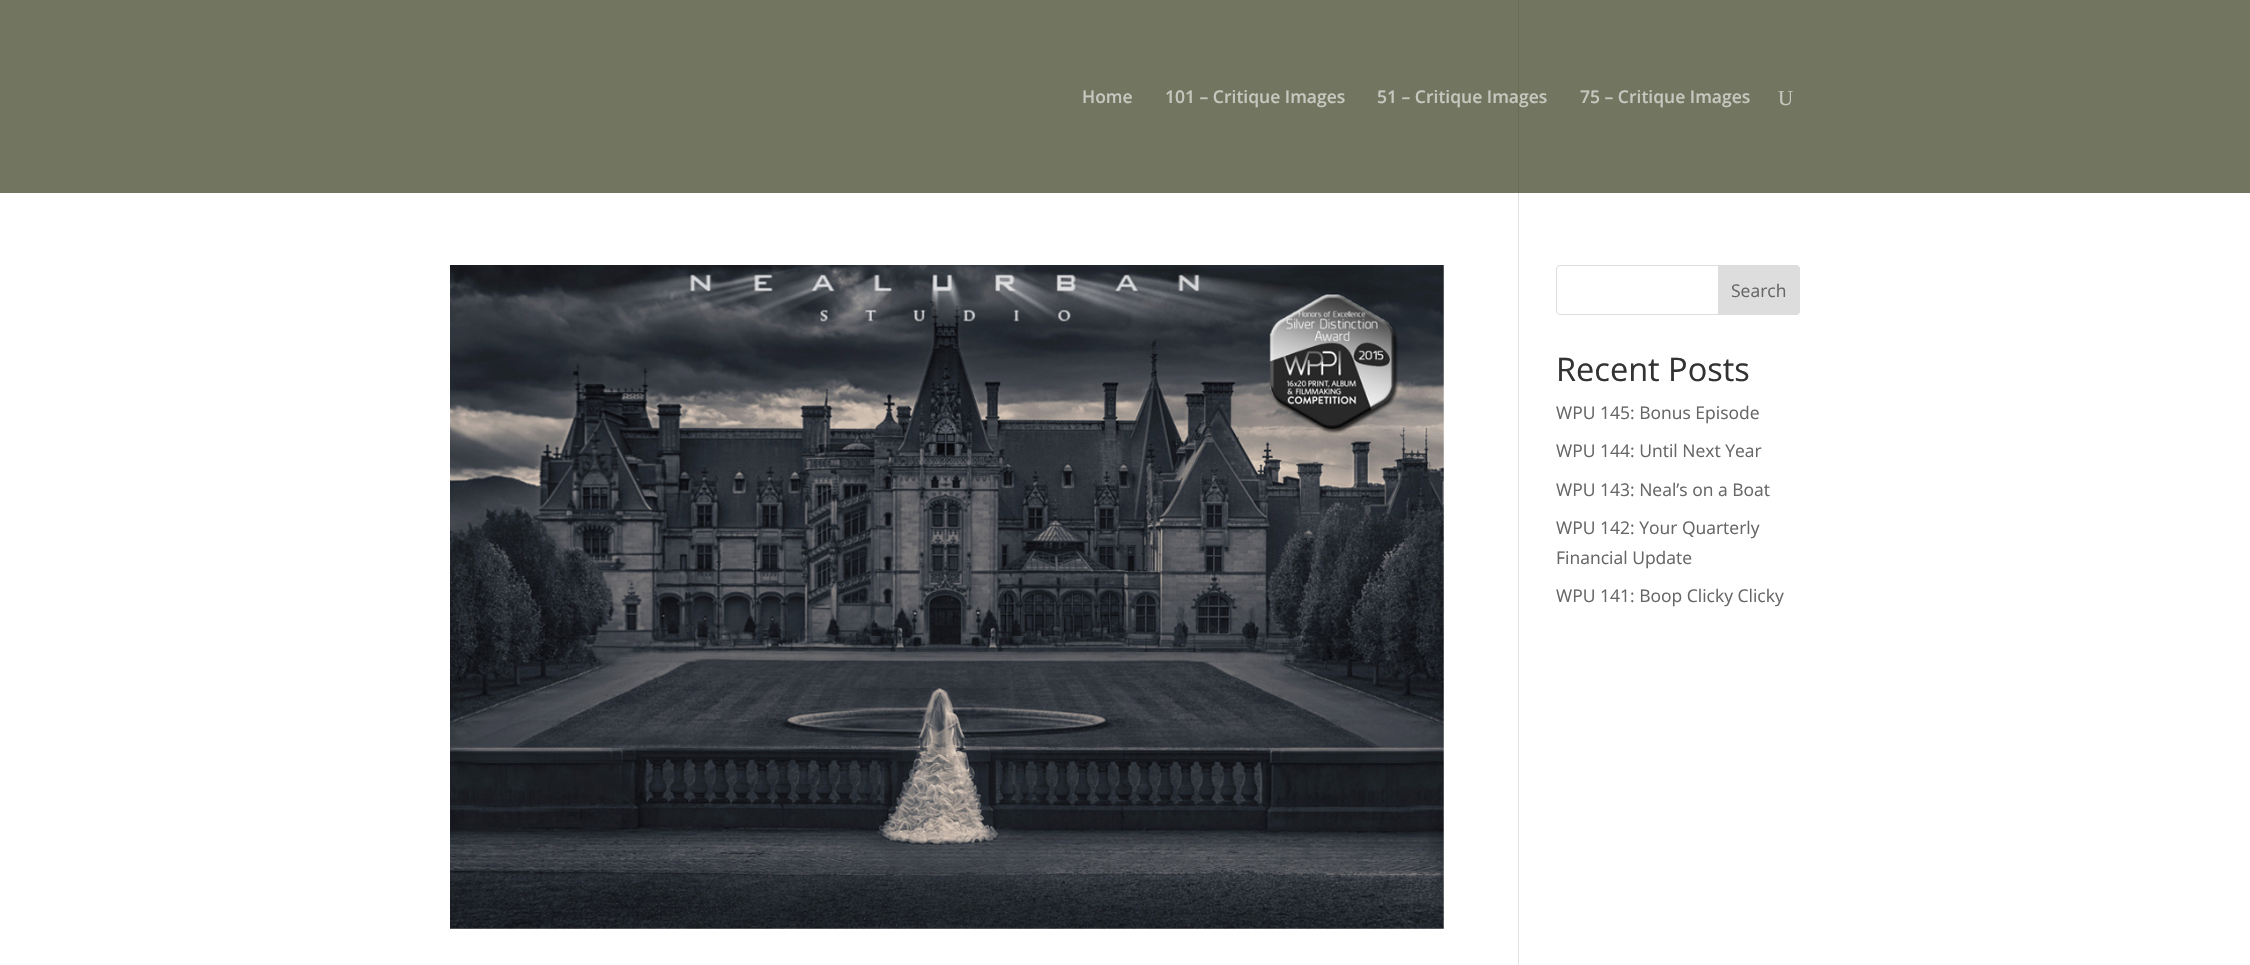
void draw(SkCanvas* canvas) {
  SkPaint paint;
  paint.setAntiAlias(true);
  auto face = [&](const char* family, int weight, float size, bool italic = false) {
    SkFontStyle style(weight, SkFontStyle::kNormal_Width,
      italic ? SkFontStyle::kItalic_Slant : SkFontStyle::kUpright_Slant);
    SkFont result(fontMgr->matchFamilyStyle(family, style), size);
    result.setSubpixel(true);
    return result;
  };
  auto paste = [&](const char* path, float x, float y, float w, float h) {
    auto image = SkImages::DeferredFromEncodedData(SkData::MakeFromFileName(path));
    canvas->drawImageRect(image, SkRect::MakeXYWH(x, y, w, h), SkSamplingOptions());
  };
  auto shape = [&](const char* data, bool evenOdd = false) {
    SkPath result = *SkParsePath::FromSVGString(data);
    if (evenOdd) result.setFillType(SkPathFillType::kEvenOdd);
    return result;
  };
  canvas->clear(0xffffffff);
  {
    const struct { float x, y, w, h; SkColor color; } items[] = {
      {0, 0, 2250, 193, 0xff72755f},
      {1518, 193, 1, 772, 0xffe2e2e2},
      {1518, 0, 1, 193, 0xff696d56},
    };
    for (auto [x, y, w, h, color] : items) {
      paint.setColor(color);
      canvas->drawRect(SkRect::MakeXYWH(x, y, w, h), paint);
    }
  }
  paste("img/1.png", 450, 265, 994, 664);
  paint.setStroke(true);
  paint.setStrokeWidth(1);
  paint.setColor(0xffdddddd);
  canvas->drawRoundRect(SkRect::MakeXYWH(1556.5f, 265.5f, 243, 49), 3.5f, 3.5f, paint);
  paint.setStroke(false);
  canvas->drawPath(shape("M1718.5 265.5H1796C1798 265.5 1799.5 267 1799.5 269V311C1799.5 313 1798 314.5 1796 314.5H1718.5Z"), paint);
  paint.setStroke(true);
  canvas->drawPath(shape("M1718.5 265.5H1796C1798 265.5 1799.5 267 1799.5 269V311C1799.5 313 1798 314.5 1796 314.5H1718.5Z"), paint);
  auto f0 = face("Open Sans", 600, 17.5f);
  paint.setStroke(false);
  paint.setColor(0xffc6c8bf);
  {
    const struct { const char* s; float x, y; } items[] = {
      {"Home", 1082, 103},
      {"101 – Critique Images", 1165, 103},
      {"51 – Critique Images", 1377, 103},
      {"75 – Critique Images", 1580, 103},
    };
    for (auto [s, x, y] : items) {
      canvas->drawString(s, x, y, f0, paint);
    }
  }
  auto f1 = face("Liberation Serif", 400, 21);
  canvas->drawString("U", 1778, 105, f1, paint);
  auto f2 = face("Open Sans", 400, 17.5f);
  paint.setColor(0xff666666);
  canvas->drawString("Search", 1731, 297, f2, paint);
  auto f3 = face("Open Sans", 400, 32.5f);
  paint.setColor(0xff333333);
  canvas->drawString("Recent Posts", 1556, 381, f3, paint);
  paint.setColor(0xff666666);
  {
    const struct { const char* s; float x, y; } items[] = {
      {"WPU 145: Bonus Episode", 1556, 419},
      {"WPU 144: Until Next Year", 1556, 457},
      {"WPU 143: Neal’s on a Boat", 1556, 496},
      {"WPU 142: Your Quarterly", 1556, 534},
      {"Financial Update", 1556, 564},
      {"WPU 141: Boop Clicky Clicky", 1556, 602},
    };
    for (auto [s, x, y] : items) {
      canvas->drawString(s, x, y, f2, paint);
    }
  }
}
